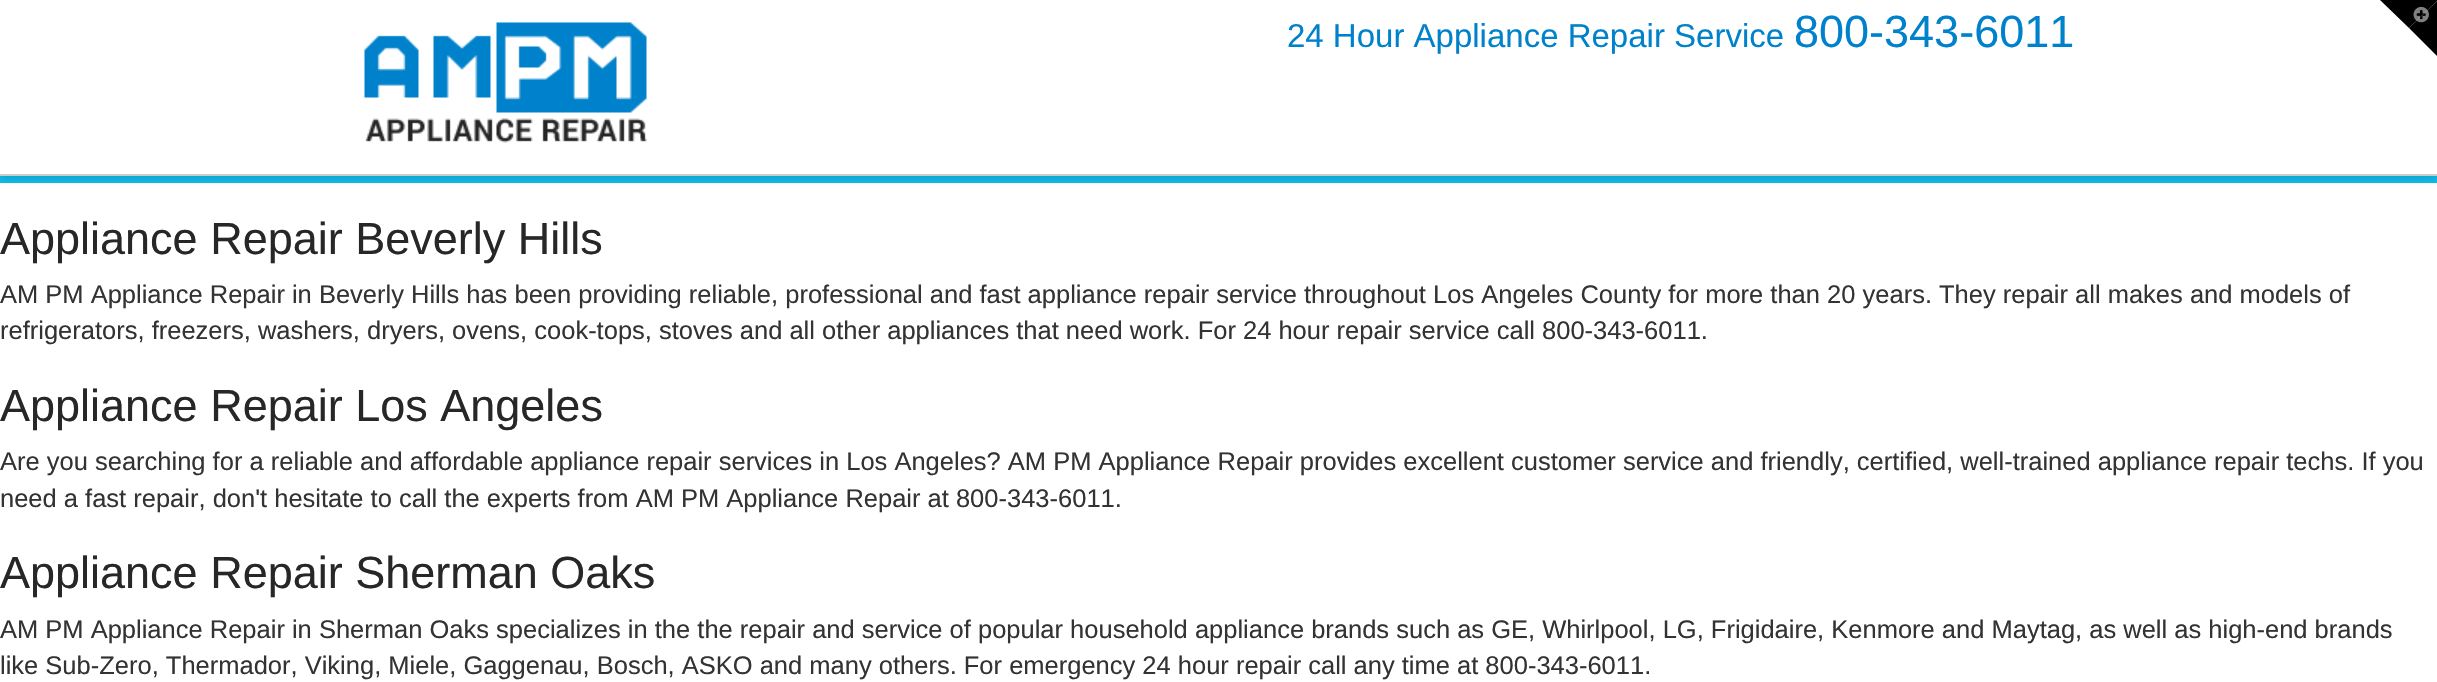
void draw(SkCanvas* canvas) {
  SkPaint paint;
  paint.setAntiAlias(true);
  auto face = [&](const char* family, int weight, float size, bool italic = false) {
    SkFontStyle style(weight, SkFontStyle::kNormal_Width,
      italic ? SkFontStyle::kItalic_Slant : SkFontStyle::kUpright_Slant);
    SkFont result(fontMgr->matchFamilyStyle(family, style), size);
    result.setSubpixel(true);
    return result;
  };
  auto paste = [&](const char* path, float x, float y, float w, float h) {
    auto image = SkImages::DeferredFromEncodedData(SkData::MakeFromFileName(path));
    canvas->drawImageRect(image, SkRect::MakeXYWH(x, y, w, h), SkSamplingOptions());
  };
  auto shape = [&](const char* data, bool evenOdd = false) {
    SkPath result = *SkParsePath::FromSVGString(data);
    if (evenOdd) result.setFillType(SkPathFillType::kEvenOdd);
    return result;
  };
  canvas->clear(0xffffffff);
  paint.setColor(0xff10bce8);
  canvas->drawRect(SkRect::MakeXYWH(0, 176, 2437, 7), paint);
  paint.setColor(0x21000000);
  paint.setMaskFilter(SkMaskFilter::MakeBlur(kNormal_SkBlurStyle, 4));
  canvas->drawRect(SkRect::MakeXYWH(0, 3, 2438, 176), paint);
  paint.setMaskFilter(nullptr);
  paint.setColor(0xffffffff);
  canvas->drawRect(SkRect::MakeXYWH(0, 0, 2437, 174), paint);
  paint.setColor(0xffcccccc);
  canvas->drawRect(SkRect::MakeXYWH(0, 174, 2437, 2), paint);
  paste("img/1.png", 364, 22, 283, 121);
  paint.setColor(0xff000000);
  canvas->drawPath(shape("M2380 0H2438L2409 28Z"), paint);
  canvas->drawPath(shape("M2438 0V57L2409 28Z"), paint);
  paste("img/2.png", 2413, 6, 16, 17);
  auto f0 = face("Liberation Sans", 400, 33);
  paint.setColor(0xff0081cb);
  canvas->drawString("24 Hour Appliance Repair Service", 1287, 47, f0, paint);
  auto f1 = face("Liberation Sans", 400, 45);
  canvas->drawString("800-343-6011", 1794, 47, f1, paint);
  paint.setColor(0xff272727);
  canvas->drawString("Appliance Repair Beverly Hills", 0, 254, f1, paint);
  auto f2 = face("Liberation Sans", 400, 25.5f);
  paint.setColor(0xff333333);
  canvas->drawString("AM PM Appliance Repair in Beverly Hills has been providing reliable, professional and fast appliance repair service throughout Los Angeles County for more than 20 years. They repair all makes and models of", 0, 303, f2, paint);
  canvas->drawString("refrigerators, freezers, washers, dryers, ovens, cook-tops, stoves and all other appliances that need work. For 24 hour repair service call 800-343-6011.", 0, 339, f2, paint);
  paint.setColor(0xff272727);
  canvas->drawString("Appliance Repair Los Angeles", 0, 421, f1, paint);
  paint.setColor(0xff333333);
  canvas->drawString("Are you searching for a reliable and affordable appliance repair services in Los Angeles? AM PM Appliance Repair provides excellent customer service and friendly, certified, well-trained appliance repair techs. If you", 0, 470, f2, paint);
  canvas->drawString("need a fast repair, don't hesitate to call the experts from AM PM Appliance Repair at 800-343-6011.", 0, 507, f2, paint);
  paint.setColor(0xff272727);
  canvas->drawString("Appliance Repair Sherman Oaks", 0, 588, f1, paint);
  paint.setColor(0xff333333);
  canvas->drawString("AM PM Appliance Repair in Sherman Oaks specializes in the the repair and service of popular household appliance brands such as GE, Whirlpool, LG, Frigidaire, Kenmore and Maytag, as well as high-end brands", 0, 638, f2, paint);
  canvas->drawString("like Sub-Zero, Thermador, Viking, Miele, Gaggenau, Bosch, ASKO and many others. For emergency 24 hour repair call any time at 800-343-6011.", 0, 674, f2, paint);
}
